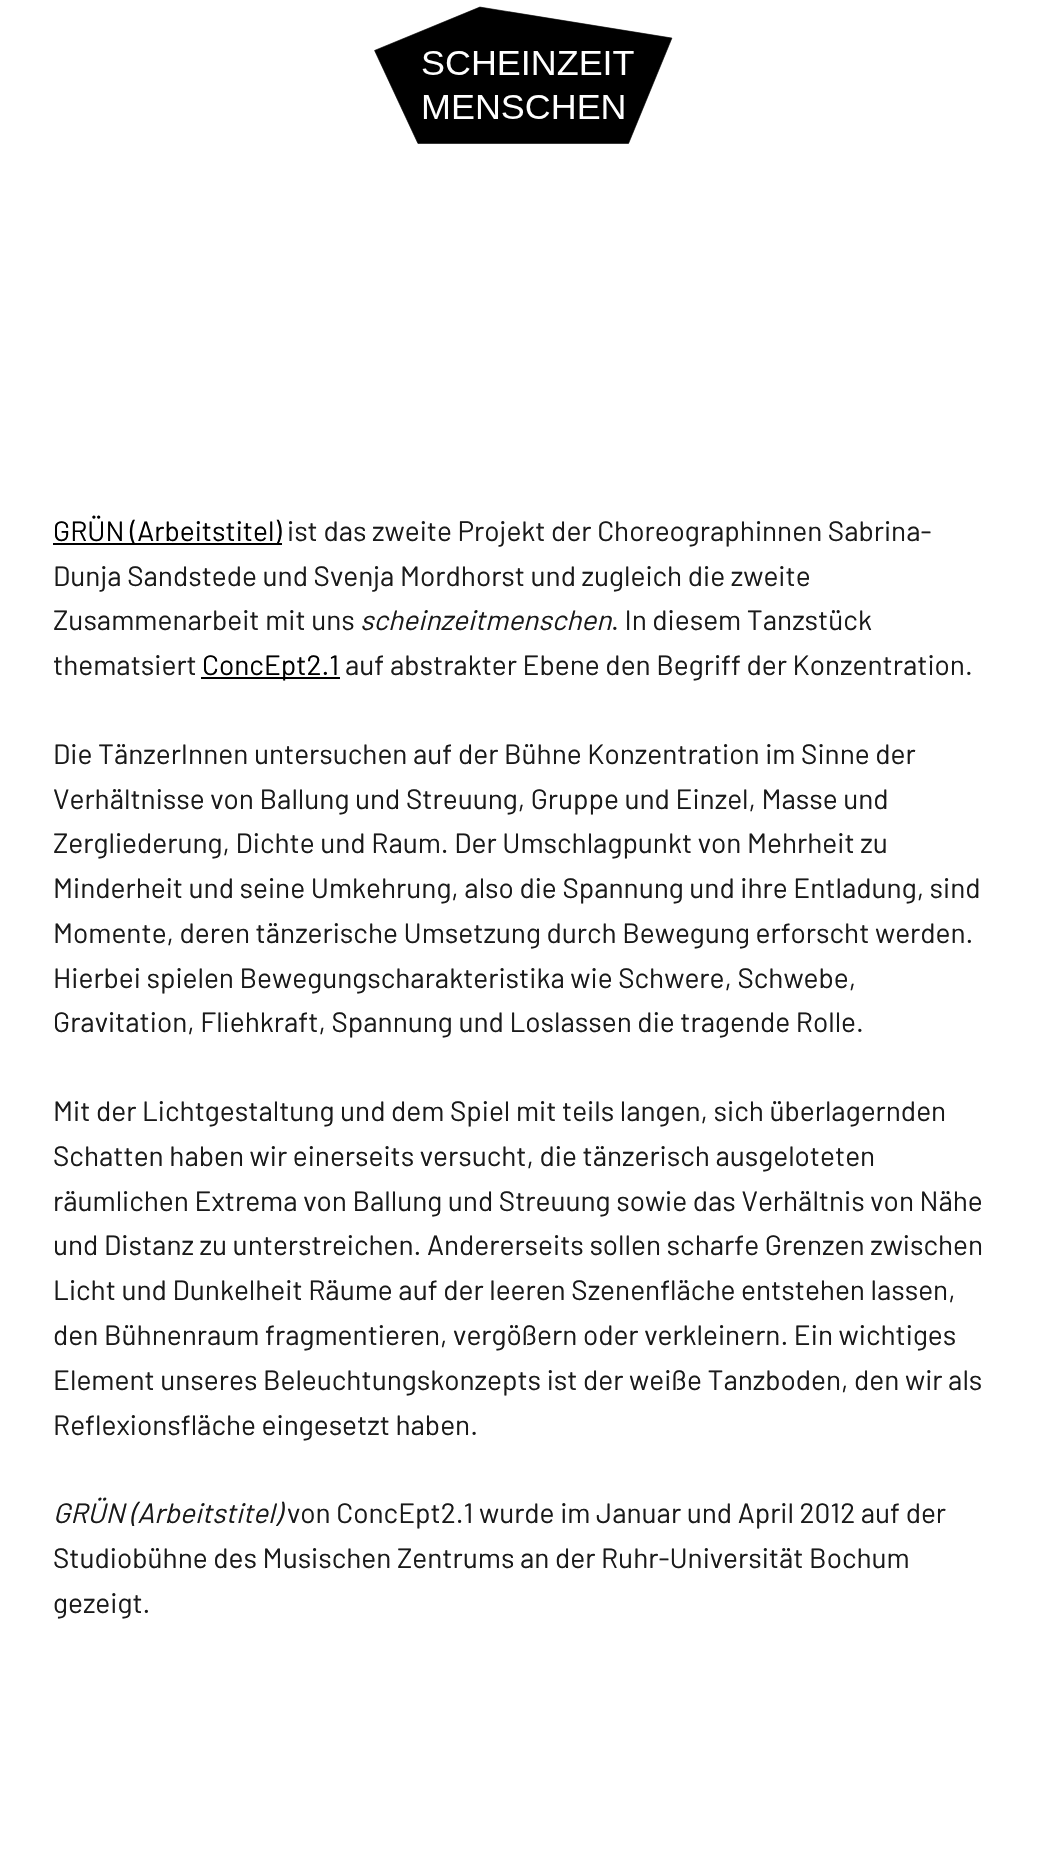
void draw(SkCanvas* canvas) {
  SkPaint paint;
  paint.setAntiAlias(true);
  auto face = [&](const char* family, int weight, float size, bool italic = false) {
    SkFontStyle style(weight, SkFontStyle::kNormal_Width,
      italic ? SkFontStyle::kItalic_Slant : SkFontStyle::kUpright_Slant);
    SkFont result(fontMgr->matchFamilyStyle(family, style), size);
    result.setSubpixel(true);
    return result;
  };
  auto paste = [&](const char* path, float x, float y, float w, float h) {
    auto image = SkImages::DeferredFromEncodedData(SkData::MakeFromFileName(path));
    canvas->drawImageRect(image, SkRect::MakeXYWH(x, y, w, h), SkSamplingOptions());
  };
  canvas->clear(0xffffffff);
  paste("img/1.png", 374, 6, 299, 138);
  paint.setColor(0xff000000);
  canvas->drawRect(SkRect::MakeXYWH(53, 543, 229, 2), paint);
  canvas->drawRect(SkRect::MakeXYWH(201, 677, 139, 2), paint);
  auto f0 = face("Barlow", 400, 28);
  canvas->drawString("GRÜN (Arbeitstitel)", 53, 541, f0, paint);
  paint.setColor(0xff1a1a1a);
  {
    const struct { const char* s; float x, y; } items[] = {
      {"ist das zweite Projekt der Choreographinnen Sabrina-", 287, 541},
      {"Dunja Sandstede und Svenja Mordhorst und zugleich die zweite", 53, 586},
      {"Zusammenarbeit mit uns", 53, 630},
    };
    for (auto [s, x, y] : items) {
      canvas->drawString(s, x, y, f0, paint);
    }
  }
  auto f1 = face("Barlow", 400, 28, true);
  canvas->drawString("scheinzeitmenschen", 360, 630, f1, paint);
  canvas->drawString(". In diesem Tanzstück", 611, 630, f0, paint);
  canvas->drawString("thematsiert", 53, 675, f0, paint);
  paint.setColor(0xff000000);
  canvas->drawString("ConcEpt2.1", 202, 675, f0, paint);
  paint.setColor(0xff1a1a1a);
  {
    const struct { const char* s; float x, y; } items[] = {
      {"auf abstrakter Ebene den Begriff der Konzentration.", 345, 675},
      {"Die TänzerInnen untersuchen auf der Bühne Konzentration im Sinne der", 53, 764},
      {"Verhältnisse von Ballung und Streuung, Gruppe und Einzel, Masse und", 53, 809},
      {"Zergliederung, Dichte und Raum. Der Umschlagpunkt von Mehrheit zu", 53, 853},
      {"Minderheit und seine Umkehrung, also die Spannung und ihre Entladung, sind", 53, 898},
      {"Momente, deren tänzerische Umsetzung durch Bewegung erforscht werden.", 53, 943},
      {"Hierbei spielen Bewegungscharakteristika wie Schwere, Schwebe,", 53, 988},
      {"Gravitation, Fliehkraft, Spannung und Loslassen die tragende Rolle.", 53, 1032},
      {"Mit der Lichtgestaltung und dem Spiel mit teils langen, sich überlagernden", 53, 1121},
      {"Schatten haben wir einerseits versucht, die tänzerisch ausgeloteten", 53, 1166},
      {"räumlichen Extrema von Ballung und Streuung sowie das Verhältnis von Nähe", 53, 1211},
      {"und Distanz zu unterstreichen. Andererseits sollen scharfe Grenzen zwischen", 53, 1255},
      {"Licht und Dunkelheit Räume auf der leeren Szenenfläche entstehen lassen,", 53, 1300},
      {"den Bühnenraum fragmentieren, vergößern oder verkleinern. Ein wichtiges", 53, 1345},
      {"Element unseres Beleuchtungskonzepts ist der weiße Tanzboden, den wir als", 53, 1390},
      {"Reflexionsfläche eingesetzt haben.", 53, 1435},
    };
    for (auto [s, x, y] : items) {
      canvas->drawString(s, x, y, f0, paint);
    }
  }
  canvas->drawString("GRÜN (Arbeitstitel)", 53, 1523, f1, paint);
  {
    const struct { const char* s; float x, y; } items[] = {
      {"von ConcEpt2.1 wurde im Januar und April 2012 auf der", 287, 1523},
      {"Studiobühne des Musischen Zentrums an der Ruhr-Universität Bochum", 53, 1568},
      {"gezeigt.", 53, 1613},
    };
    for (auto [s, x, y] : items) {
      canvas->drawString(s, x, y, f0, paint);
    }
  }
}
